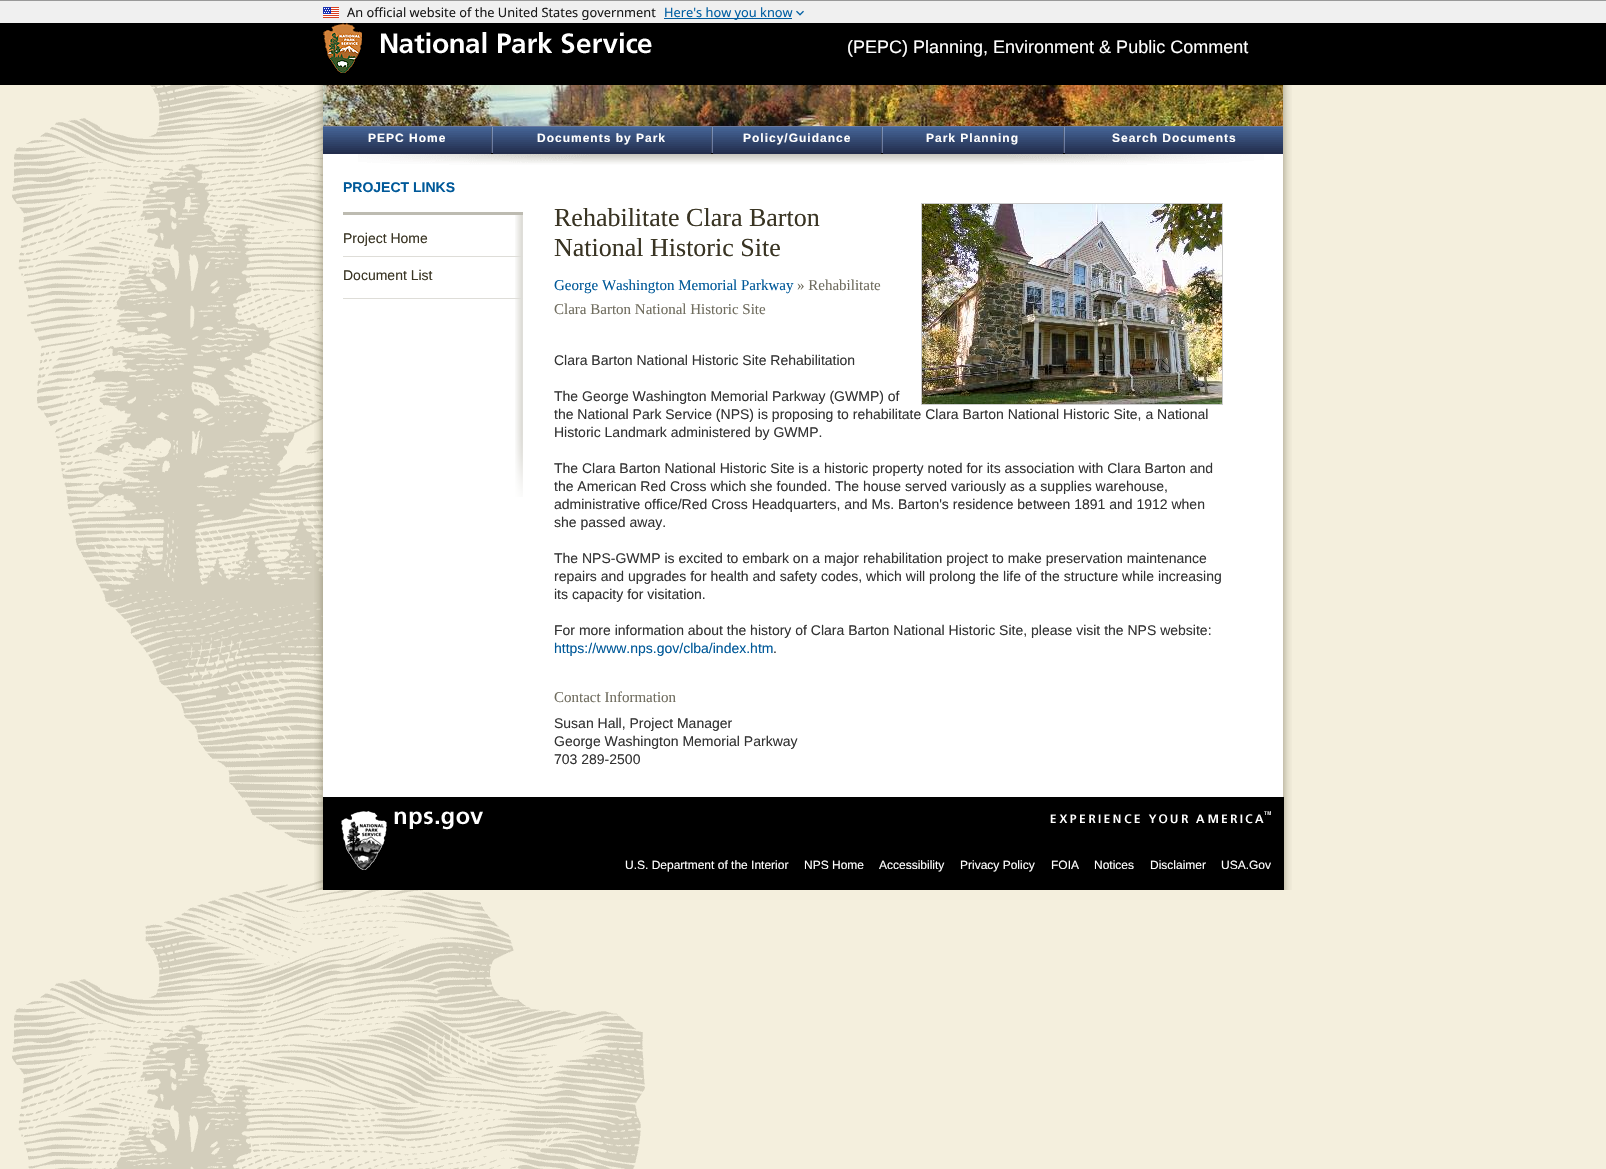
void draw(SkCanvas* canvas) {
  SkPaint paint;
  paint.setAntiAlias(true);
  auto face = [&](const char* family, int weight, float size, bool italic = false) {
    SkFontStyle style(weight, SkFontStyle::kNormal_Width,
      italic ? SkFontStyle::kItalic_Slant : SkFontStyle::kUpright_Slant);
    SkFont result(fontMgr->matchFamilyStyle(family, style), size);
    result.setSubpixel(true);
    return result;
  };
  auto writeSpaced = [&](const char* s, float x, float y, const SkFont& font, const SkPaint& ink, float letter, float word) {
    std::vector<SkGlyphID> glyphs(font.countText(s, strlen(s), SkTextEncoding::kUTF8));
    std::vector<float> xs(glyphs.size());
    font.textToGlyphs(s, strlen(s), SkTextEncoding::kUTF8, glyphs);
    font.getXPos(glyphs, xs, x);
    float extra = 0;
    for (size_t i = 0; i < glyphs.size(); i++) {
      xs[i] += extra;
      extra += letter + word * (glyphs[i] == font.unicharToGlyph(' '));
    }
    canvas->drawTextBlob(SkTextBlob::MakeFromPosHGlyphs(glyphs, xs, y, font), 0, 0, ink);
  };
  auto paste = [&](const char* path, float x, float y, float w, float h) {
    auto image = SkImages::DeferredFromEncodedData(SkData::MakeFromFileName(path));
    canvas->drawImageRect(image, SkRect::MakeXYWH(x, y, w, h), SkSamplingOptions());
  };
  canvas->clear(0xfff4efdd);
  paste("img/1.png", 12, 85, 633, 1084);
  paint.setColor(0xff999999);
  canvas->drawRect(SkRect::MakeXYWH(0, 0, 1606, 1), paint);
  paint.setColor(0xfff0f0f0);
  canvas->drawRect(SkRect::MakeXYWH(0, 1, 1606, 22), paint);
  paste("img/2.png", 323, 7, 16, 11);
  paint.setColor(0xff005ea2);
  canvas->drawRect(SkRect::MakeXYWH(664, 18, 128, 1), paint);
  paste("img/3.png", 796, 10, 8, 6);
  paint.setColor(0xff000000);
  canvas->drawRect(SkRect::MakeXYWH(0, 23, 1606, 62), paint);
  paste("img/4.png", 323, 23, 329, 50);
  paste("img/5.png", 314, 85, 978, 84);
  paste("img/6.png", 323, 85, 960, 41);
  paste("img/7.png", 323, 127, 960, 26);
  {
    const struct { float x, y, w, h; SkColor color; } items[] = {
      {323, 126, 960, 1, 0xff6b7a9f},
      {491, 153, 574, 1, 0xff000000},
      {323, 153, 168, 1, 0xff232d4c},
    };
    for (auto [x, y, w, h, color] : items) {
      paint.setColor(color);
      canvas->drawRect(SkRect::MakeXYWH(x, y, w, h), paint);
    }
  }
  paste("img/8.png", 491, 127, 2, 26);
  canvas->drawRect(SkRect::MakeXYWH(493, 153, 218, 1), paint);
  paste("img/8.png", 711, 127, 2, 26);
  canvas->drawRect(SkRect::MakeXYWH(713, 153, 168, 1), paint);
  paste("img/8.png", 881, 127, 2, 26);
  canvas->drawRect(SkRect::MakeXYWH(883, 153, 180, 1), paint);
  paste("img/8.png", 1063, 127, 2, 26);
  canvas->drawRect(SkRect::MakeXYWH(1065, 153, 218, 1), paint);
  paste("img/9.png", 323, 154, 960, 15);
  paste("img/10.png", 314, 169, 978, 628);
  paint.setColor(0xffffffff);
  canvas->drawRect(SkRect::MakeXYWH(323, 169, 960, 628), paint);
  paint.setColor(0xffbdbbb1);
  canvas->drawRect(SkRect::MakeXYWH(343, 212, 180, 3), paint);
  paste("img/11.png", 515, 215, 8, 282);
  paint.setColor(0xffdeddd8);
  canvas->drawRect(SkRect::MakeXYWH(343, 298, 180, 1), paint);
  canvas->drawRect(SkRect::MakeXYWH(343, 256, 180, 1), paint);
  paint.setStroke(true);
  paint.setStrokeWidth(1);
  paint.setColor(0xffcccccc);
  canvas->drawRect(SkRect::MakeXYWH(921.5f, 203.5f, 301, 201), paint);
  paste("img/12.png", 922, 204, 300, 200);
  paste("img/13.png", 314, 797, 978, 93);
  paint.setStroke(false);
  paint.setColor(0xff000000);
  canvas->drawRect(SkRect::MakeXYWH(323, 797, 961, 93), paint);
  paste("img/14.png", 341, 811, 46, 59);
  paste("img/15.png", 394, 811, 89, 19);
  paste("img/16.png", 1050, 811, 221, 13);
  auto f0 = face("Noto Sans", 400, 12.8f);
  paint.setColor(0xff1b1b1b);
  canvas->drawString("An official website of the United States government", 347, 17, f0, paint);
  paint.setColor(0xff005ea2);
  canvas->drawString("Here's how you know", 664, 17, f0, paint);
  auto f1 = face("Liberation Sans", 400, 18);
  paint.setColor(0xffffffff);
  canvas->drawString("(PEPC) Planning, Environment & Public Comment", 847, 53, f1, paint);
  auto f2 = face("Liberation Sans", 700, 12);
  {
    const struct { const char* s; float x, y; } items[] = {
      {"PEPC Home", 368, 142},
      {"Documents by Park", 537, 142},
      {"Policy/Guidance", 743, 142},
      {"Park Planning", 926, 142},
      {"Search Documents", 1112, 142},
    };
    for (auto [s, x, y] : items) {
      writeSpaced(s, x, y, f2, paint, 1, 0);
    }
  }
  auto f3 = face("Liberation Sans", 700, 14);
  paint.setColor(0xff005999);
  canvas->drawString("PROJECT LINKS", 343, 192, f3, paint);
  auto f4 = face("Liberation Sans", 400, 14);
  paint.setColor(0xff393423);
  canvas->drawString("Project Home", 343, 243, f4, paint);
  canvas->drawString("Document List", 343, 280, f4, paint);
  auto f5 = face("Liberation Serif", 400, 26);
  canvas->drawString("Rehabilitate Clara Barton", 554, 226, f5, paint);
  canvas->drawString("National Historic Site", 554, 256, f5, paint);
  auto f6 = face("Liberation Serif", 400, 15);
  paint.setColor(0xff005999);
  canvas->drawString("George Washington Memorial Parkway", 554, 290, f6, paint);
  paint.setColor(0xff706d5f);
  canvas->drawString("» Rehabilitate", 797, 290, f6, paint);
  canvas->drawString("Clara Barton National Historic Site", 554, 314, f6, paint);
  paint.setColor(0xff333333);
  {
    const struct { const char* s; float x, y; } items[] = {
      {"Clara Barton National Historic Site Rehabilitation", 554, 365},
      {"The George Washington Memorial Parkway (GWMP) of", 554, 401},
      {"the National Park Service (NPS) is proposing to rehabilitate Clara Barton National Historic Site, a National", 554, 419},
      {"Historic Landmark administered by GWMP.", 554, 437},
      {"The Clara Barton National Historic Site is a historic property noted for its association with Clara Barton and", 554, 473},
      {"the American Red Cross which she founded. The house served variously as a supplies warehouse,", 554, 491},
      {"administrative office/Red Cross Headquarters, and Ms. Barton's residence between 1891 and 1912 when", 554, 509},
      {"she passed away.", 554, 527},
      {"The NPS-GWMP is excited to embark on a major rehabilitation project to make preservation maintenance", 554, 563},
      {"repairs and upgrades for health and safety codes, which will prolong the life of the structure while increasing", 554, 581},
      {"its capacity for visitation.", 554, 599},
      {"For more information about the history of Clara Barton National Historic Site, please visit the NPS website:", 554, 635},
    };
    for (auto [s, x, y] : items) {
      canvas->drawString(s, x, y, f4, paint);
    }
  }
  paint.setColor(0xff005999);
  canvas->drawString("https://www.nps.gov/clba/index.htm", 554, 653, f4, paint);
  paint.setColor(0xff333333);
  canvas->drawString(".", 773, 653, f4, paint);
  paint.setColor(0xff706d5f);
  canvas->drawString("Contact Information", 554, 702, f6, paint);
  paint.setColor(0xff333333);
  {
    const struct { const char* s; float x, y; } items[] = {
      {"Susan Hall, Project Manager", 554, 728},
      {"George Washington Memorial Parkway", 554, 746},
      {"703 289-2500", 554, 764},
    };
    for (auto [s, x, y] : items) {
      canvas->drawString(s, x, y, f4, paint);
    }
  }
  auto f7 = face("Liberation Sans", 400, 12);
  paint.setColor(0xffffffff);
  {
    const struct { const char* s; float x, y; } items[] = {
      {"U.S. Department of the Interior", 625, 869},
      {"NPS Home", 804, 869},
      {"Accessibility", 879, 869},
      {"Privacy Policy", 960, 869},
      {"FOIA", 1051, 869},
      {"Notices", 1094, 869},
      {"Disclaimer", 1150, 869},
      {"USA.Gov", 1221, 869},
    };
    for (auto [s, x, y] : items) {
      canvas->drawString(s, x, y, f7, paint);
    }
  }
}
